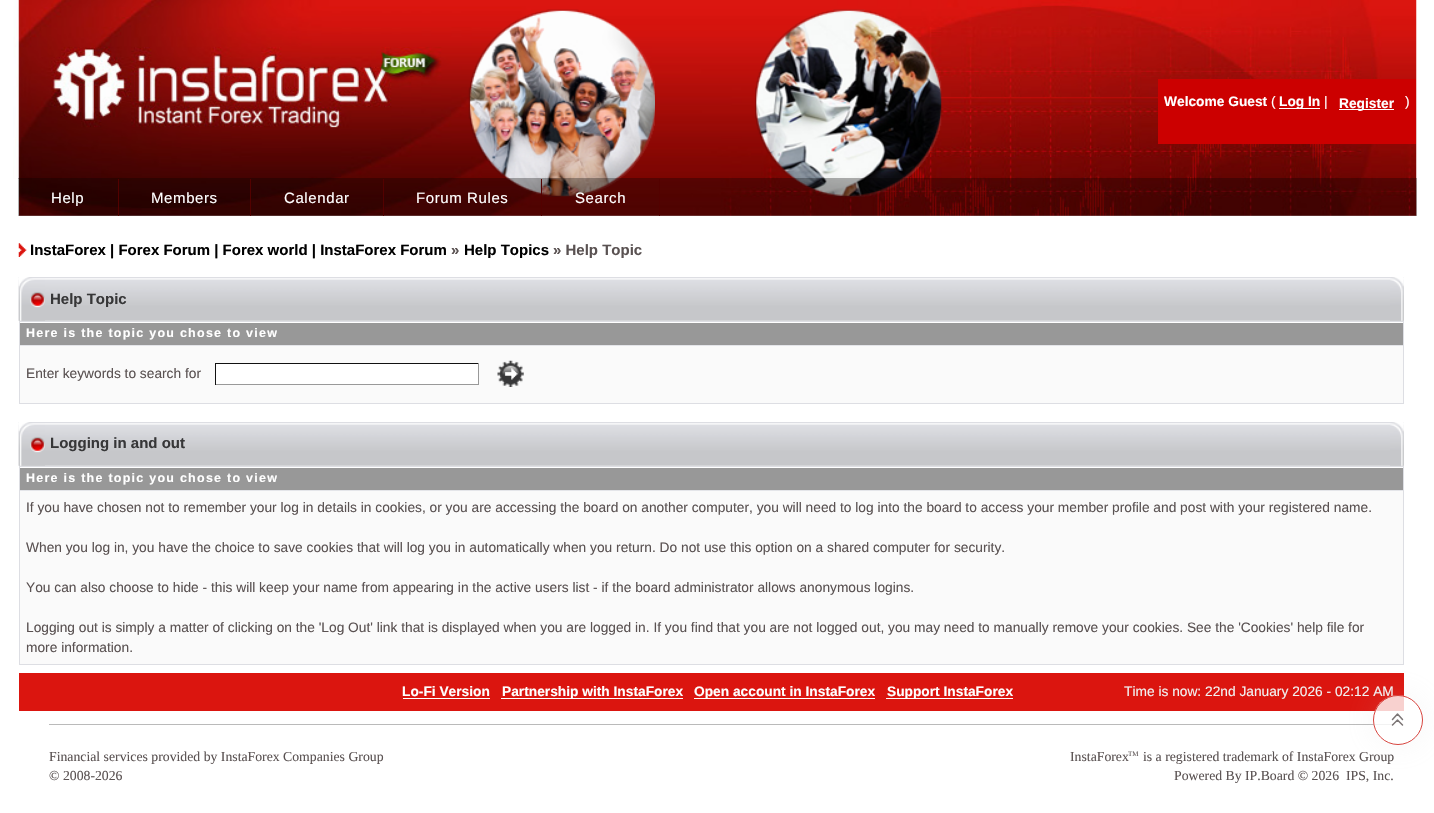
void draw(SkCanvas* canvas) {
  SkPaint paint;
  paint.setAntiAlias(true);
  auto face = [&](const char* family, int weight, float size, bool italic = false) {
    SkFontStyle style(weight, SkFontStyle::kNormal_Width,
      italic ? SkFontStyle::kItalic_Slant : SkFontStyle::kUpright_Slant);
    SkFont result(fontMgr->matchFamilyStyle(family, style), size);
    result.setSubpixel(true);
    return result;
  };
  auto writeSpaced = [&](const char* s, float x, float y, const SkFont& font, const SkPaint& ink, float letter, float word) {
    std::vector<SkGlyphID> glyphs(font.countText(s, strlen(s), SkTextEncoding::kUTF8));
    std::vector<float> xs(glyphs.size());
    font.textToGlyphs(s, strlen(s), SkTextEncoding::kUTF8, glyphs);
    font.getXPos(glyphs, xs, x);
    float extra = 0;
    for (size_t i = 0; i < glyphs.size(); i++) {
      xs[i] += extra;
      extra += letter + word * (glyphs[i] == font.unicharToGlyph(' '));
    }
    canvas->drawTextBlob(SkTextBlob::MakeFromPosHGlyphs(glyphs, xs, y, font), 0, 0, ink);
  };
  auto paste = [&](const char* path, float x, float y, float w, float h) {
    auto image = SkImages::DeferredFromEncodedData(SkData::MakeFromFileName(path));
    canvas->drawImageRect(image, SkRect::MakeXYWH(x, y, w, h), SkSamplingOptions());
  };
  auto shape = [&](const char* data, bool evenOdd = false) {
    SkPath result = *SkParsePath::FromSVGString(data);
    if (evenOdd) result.setFillType(SkPathFillType::kEvenOdd);
    return result;
  };
  canvas->clear(0xffffffff);
  paste("img/3.png", 13, 0, 1404, 216);
  paste("img/1.png", 468, 9, 187, 188);
  paste("img/2.png", 755, 9, 187, 188);
  {
    const struct { float x, y, w, h; SkColor color; } items[] = {
      {1158, 79, 258, 65, 0xffcc0000},
      {1279, 108, 41, 1, 0xffffffff},
      {1339, 109, 55, 1, 0xffffffff},
      {13, 179, 6, 37, 0xffffffff},
      {18, 178, 1399, 38, 0x4d000000},
      {118, 179, 1, 37, 0xff530100},
      {250, 179, 1, 37, 0xff530100},
      {383, 179, 1, 37, 0xff530100},
      {541, 179, 1, 37, 0xff530100},
      {659, 179, 1, 37, 0xff530100},
    };
    for (auto [x, y, w, h, color] : items) {
      paint.setColor(color);
      canvas->drawRect(SkRect::MakeXYWH(x, y, w, h), paint);
    }
  }
  paste("img/4.png", 18, 243, 9, 14);
  paste("img/5.png", 18, 277, 1386, 44);
  paste("img/6.png", 18, 277, 27, 44);
  paste("img/7.png", 1390, 277, 14, 44);
  paint.setStroke(true);
  paint.setStrokeWidth(1);
  paint.setColor(0xffdddee3);
  canvas->drawRect(SkRect::MakeXYWH(19.5f, 321.5f, 1384, 82), paint);
  paint.setStroke(false);
  {
    const struct { float x, y, w, h; SkColor color; } items[] = {
      {20, 323, 1383, 22, 0xff989898},
      {20, 346, 1383, 57, 0xfffafafa},
      {20, 345, 1383, 1, 0xffe4e5e9},
      {216, 364, 262, 20, 0xffffffff},
      {215, 363, 264, 1, 0xff111111},
      {478, 363, 1, 22, 0xff999999},
      {215, 384, 264, 1, 0xff999999},
      {215, 363, 1, 22, 0xff111111},
    };
    for (auto [x, y, w, h, color] : items) {
      paint.setColor(color);
      canvas->drawRect(SkRect::MakeXYWH(x, y, w, h), paint);
    }
  }
  paste("img/8.png", 497, 360, 27, 27);
  paste("img/5.png", 18, 422, 1386, 44);
  paste("img/9.png", 18, 422, 27, 44);
  paste("img/7.png", 1390, 422, 14, 44);
  paint.setStroke(true);
  paint.setColor(0xffdddee3);
  canvas->drawRect(SkRect::MakeXYWH(19.5f, 466.5f, 1384, 198), paint);
  paint.setStroke(false);
  {
    const struct { float x, y, w, h; SkColor color; } items[] = {
      {20, 468, 1383, 22, 0xff989898},
      {20, 491, 1383, 173, 0xfffafafa},
      {20, 490, 1383, 1, 0xffe4e5e9},
      {19, 673, 1385, 38, 0xffdb150f},
      {49, 724, 1345, 1, 0xffbababa},
    };
    for (auto [x, y, w, h, color] : items) {
      paint.setColor(color);
      canvas->drawRect(SkRect::MakeXYWH(x, y, w, h), paint);
    }
  }
  canvas->save();
  canvas->clipPath(shape("M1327 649H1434V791H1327ZM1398 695C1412 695 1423 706 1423 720C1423 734 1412 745 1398 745C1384 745 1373 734 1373 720C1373 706 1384 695 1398 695Z", true), true);
  paint.setColor(0x29c4c4c4);
  paint.setMaskFilter(SkMaskFilter::MakeBlur(kNormal_SkBlurStyle, 15));
  canvas->drawRoundRect(SkRect::MakeXYWH(1373, 695, 50, 50), 25, 25, paint);
  paint.setMaskFilter(nullptr);
  canvas->restore();
  {
    const struct { float x, y, w, h; SkColor color; } items[] = {
      {403, 698, 87, 1, 0xffffffff},
      {501, 698, 182, 1, 0xffffffff},
      {694, 698, 181, 1, 0xffffffff},
      {886, 698, 127, 1, 0xffffffff},
    };
    for (auto [x, y, w, h, color] : items) {
      paint.setColor(color);
      canvas->drawRect(SkRect::MakeXYWH(x, y, w, h), paint);
    }
  }
  auto f0 = face("Liberation Sans", 700, 13.75f);
  canvas->drawString("Welcome Guest", 1164, 106, f0, paint);
  auto f1 = face("Liberation Sans", 400, 13.75f);
  canvas->drawString("(", 1271, 106, f1, paint);
  canvas->drawString("Log In", 1279, 106, f0, paint);
  canvas->drawString("|", 1324, 106, f1, paint);
  canvas->drawString("Register", 1339, 108, f0, paint);
  canvas->drawString(")", 1405, 106, f1, paint);
  auto f2 = face("Liberation Sans", 400, 15);
  {
    const struct { const char* s; float x, y; } items[] = {
      {"Help", 51, 203},
      {"Members", 151, 203},
      {"Calendar", 284, 203},
      {"Forum Rules", 416, 203},
      {"Search", 575, 203},
    };
    for (auto [s, x, y] : items) {
      writeSpaced(s, x, y, f2, paint, 0.6f, 0);
    }
  }
  auto f3 = face("Liberation Sans", 700, 15);
  paint.setColor(0xff000000);
  canvas->drawString("InstaForex | Forex Forum | Forex world | InstaForex Forum", 30, 255, f3, paint);
  paint.setColor(0xff5a5252);
  canvas->drawString("»", 451, 255, f3, paint);
  paint.setColor(0xff000000);
  canvas->drawString("Help Topics", 464, 255, f3, paint);
  paint.setColor(0xff5a5252);
  canvas->drawString("» Help Topic", 553, 255, f3, paint);
  paint.setColor(0xff373738);
  canvas->drawString("Help Topic", 50, 304, f3, paint);
  auto f4 = face("Liberation Sans", 700, 12.5f);
  paint.setColor(0xffffffff);
  writeSpaced("Here is the topic you chose to view", 26, 337, f4, paint, 1.25f, 0);
  paint.setColor(0xff5a5252);
  canvas->drawString("Enter keywords to search for", 26, 378, f1, paint);
  paint.setColor(0xff373738);
  canvas->drawString("Logging in and out", 50, 448, f3, paint);
  paint.setColor(0xffffffff);
  writeSpaced("Here is the topic you chose to view", 26, 482, f4, paint, 1.25f, 0);
  paint.setColor(0xff5a5252);
  {
    const struct { const char* s; float x, y; } items[] = {
      {"If you have chosen not to remember your log in details in cookies, or you are accessing the board on another computer, you will need to log into the board to access your member profile and post with your registered name.", 26, 512},
      {"When you log in, you have the choice to save cookies that will log you in automatically when you return. Do not use this option on a shared computer for security.", 26, 552},
      {"You can also choose to hide - this will keep your name from appearing in the active users list - if the board administrator allows anonymous logins.", 26, 592},
      {"Logging out is simply a matter of clicking on the 'Log Out' link that is displayed when you are logged in. If you find that you are not logged out, you may need to manually remove your cookies. See the 'Cookies' help file for", 26, 632},
      {"more information.", 26, 652},
    };
    for (auto [s, x, y] : items) {
      canvas->drawString(s, x, y, f1, paint);
    }
  }
  paint.setColor(0xffffffff);
  {
    const struct { const char* s; float x, y; } items[] = {
      {"Lo-Fi Version", 402, 696},
      {"Partnership with InstaForex", 502, 696},
      {"Open account in InstaForex", 694, 696},
      {"Support InstaForex", 887, 696},
    };
    for (auto [s, x, y] : items) {
      canvas->drawString(s, x, y, f0, paint);
    }
  }
  paint.setColor(0xfff1f1f1);
  canvas->drawString("Time is now: 22nd January 2026 - 02:12 AM", 1124, 696, f1, paint);
  paint.setColor(0xccffffff);
  canvas->drawCircle(1398, 720, 25, paint);
  paint.setStroke(true);
  paint.setColor(0xcccc140c);
  canvas->drawCircle(1398, 720, 24.5f, paint);
  paint.setStrokeWidth(1.5f);
  paint.setStrokeCap(SkPaint::kRound_Cap);
  paint.setStrokeJoin(SkPaint::kRound_Join);
  paint.setColor(0xcc5a5252);
  canvas->drawPath(shape("M1392.5 719.5L1397.5 714L1402.5 719.5M1392.5 725L1397.5 720L1402.5 725"), paint);
  auto f5 = face("Liberation Serif", 400, 13.75f);
  paint.setStroke(false);
  paint.setColor(0xff5a5252);
  {
    const struct { const char* s; float x, y; } items[] = {
      {"Financial services provided by InstaForex Companies Group", 49, 761},
      {"© 2008-2026", 49, 780},
      {"InstaForex", 1070, 761},
    };
    for (auto [s, x, y] : items) {
      canvas->drawString(s, x, y, f5, paint);
    }
  }
  auto f6 = face("Liberation Serif", 400, 7);
  canvas->drawString("TM", 1128, 756, f6, paint);
  {
    const struct { const char* s; float x, y; } items[] = {
      {"is a registered trademark of InstaForex Group", 1143, 761},
      {"Powered By IP.Board © 2026", 1174, 780},
      {"IPS, Inc.", 1346, 780},
    };
    for (auto [s, x, y] : items) {
      canvas->drawString(s, x, y, f5, paint);
    }
  }
}
